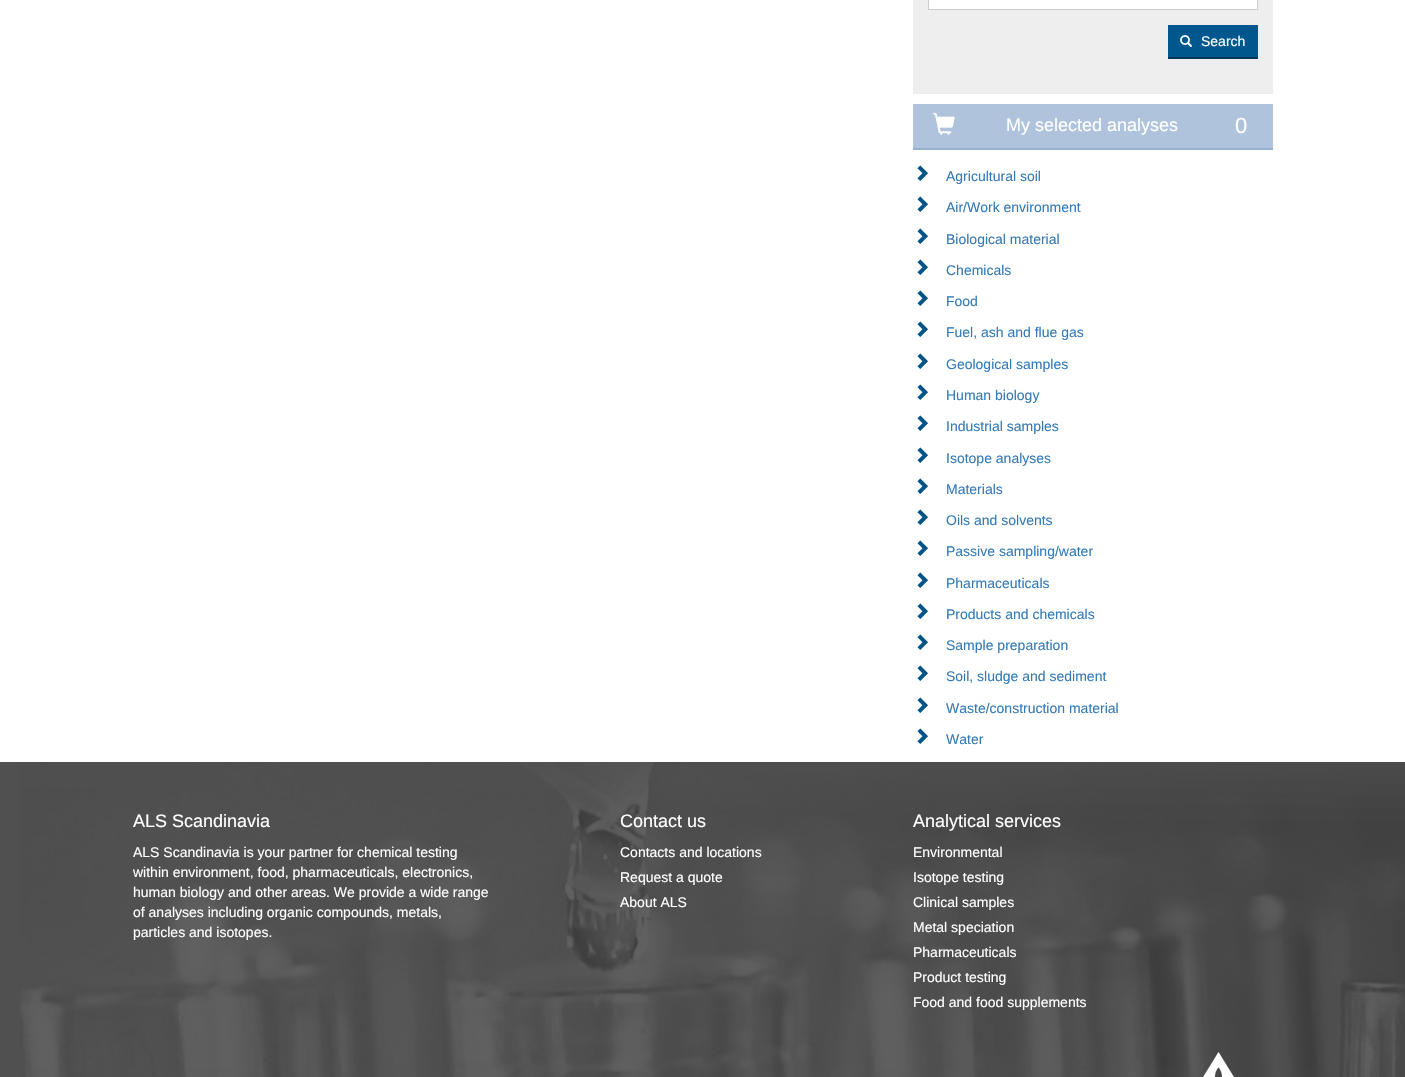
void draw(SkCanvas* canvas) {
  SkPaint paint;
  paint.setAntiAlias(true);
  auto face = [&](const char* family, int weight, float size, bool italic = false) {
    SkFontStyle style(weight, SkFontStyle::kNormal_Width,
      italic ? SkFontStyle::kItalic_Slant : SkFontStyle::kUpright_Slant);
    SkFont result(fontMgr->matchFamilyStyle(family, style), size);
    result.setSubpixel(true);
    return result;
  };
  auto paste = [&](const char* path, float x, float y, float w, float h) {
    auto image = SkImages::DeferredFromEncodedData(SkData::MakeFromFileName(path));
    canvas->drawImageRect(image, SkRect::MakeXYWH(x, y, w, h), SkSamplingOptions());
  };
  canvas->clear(0xffffffff);
  paint.setColor(0xffeeeeee);
  canvas->drawRect(SkRect::MakeXYWH(913, 0, 360, 94), paint);
  paint.setColor(0xffffffff);
  canvas->drawRect(SkRect::MakeXYWH(928.5f, -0.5f, 329, 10), paint);
  paint.setStroke(true);
  paint.setStrokeWidth(1);
  paint.setColor(0xffcccccc);
  canvas->drawRect(SkRect::MakeXYWH(928.5f, -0.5f, 329, 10), paint);
  paint.setStroke(false);
  paint.setColor(0xff00578e);
  canvas->drawRect(SkRect::MakeXYWH(1168, 25, 90, 32), paint);
  paint.setColor(0xff00385b);
  canvas->drawRect(SkRect::MakeXYWH(1168, 57, 90, 2), paint);
  paste("img/1.png", 1180, 35, 12, 12);
  paint.setColor(0xffafc3dd);
  canvas->drawRect(SkRect::MakeXYWH(913, 104, 360, 44), paint);
  paint.setColor(0xff98b3d2);
  canvas->drawRect(SkRect::MakeXYWH(913, 148, 360, 2), paint);
  paste("img/2.png", 933, 113, 22, 22);
  paste("img/3.png", 917, 165, 11, 16);
  paste("img/3.png", 917, 196, 11, 16);
  paste("img/3.png", 917, 228, 11, 16);
  paste("img/3.png", 917, 259, 11, 16);
  paste("img/3.png", 917, 290, 11, 16);
  paste("img/3.png", 917, 321, 11, 16);
  paste("img/3.png", 917, 353, 11, 16);
  paste("img/3.png", 917, 384, 11, 16);
  paste("img/3.png", 917, 415, 11, 16);
  paste("img/3.png", 917, 447, 11, 16);
  paste("img/3.png", 917, 478, 11, 16);
  paste("img/3.png", 917, 509, 11, 16);
  paste("img/3.png", 917, 540, 11, 16);
  paste("img/3.png", 917, 572, 11, 16);
  paste("img/3.png", 917, 603, 11, 16);
  paste("img/3.png", 917, 634, 11, 16);
  paste("img/3.png", 917, 665, 11, 16);
  paste("img/3.png", 917, 697, 11, 16);
  paste("img/3.png", 917, 728, 11, 16);
  paint.setColor(0xff505050);
  canvas->drawRect(SkRect::MakeXYWH(0, 762, 20, 315), paint);
  paste("img/4.png", 20, 762, 1385, 315);
  paste("img/5.png", 1203, 1052, 31, 25);
  auto f0 = face("Liberation Sans", 400, 14);
  paint.setColor(0xffffffff);
  canvas->drawString("Search", 1201, 46, f0, paint);
  auto f1 = face("Liberation Sans", 400, 18);
  canvas->drawString("My selected analyses", 1006, 131, f1, paint);
  auto f2 = face("Liberation Sans", 400, 22);
  canvas->drawString("0", 1235, 133, f2, paint);
  paint.setColor(0xff337ab7);
  {
    const struct { const char* s; float x, y; } items[] = {
      {"Agricultural soil", 946, 181},
      {"Air/Work environment", 946, 212},
      {"Biological material", 946, 244},
      {"Chemicals", 946, 275},
      {"Food", 946, 306},
      {"Fuel, ash and flue gas", 946, 337},
      {"Geological samples", 946, 369},
      {"Human biology", 946, 400},
      {"Industrial samples", 946, 431},
      {"Isotope analyses", 946, 463},
      {"Materials", 946, 494},
      {"Oils and solvents", 946, 525},
      {"Passive sampling/water", 946, 556},
      {"Pharmaceuticals", 946, 588},
      {"Products and chemicals", 946, 619},
      {"Sample preparation", 946, 650},
      {"Soil, sludge and sediment", 946, 681},
      {"Waste/construction material", 946, 713},
      {"Water", 946, 744},
    };
    for (auto [s, x, y] : items) {
      canvas->drawString(s, x, y, f0, paint);
    }
  }
  paint.setColor(0xffffffff);
  canvas->drawString("ALS Scandinavia", 133, 827, f1, paint);
  {
    const struct { const char* s; float x, y; } items[] = {
      {"ALS Scandinavia is your partner for chemical testing", 133, 857},
      {"within environment, food, pharmaceuticals, electronics,", 133, 877},
      {"human biology and other areas. We provide a wide range", 133, 897},
      {"of analyses including organic compounds, metals,", 133, 917},
      {"particles and isotopes.", 133, 937},
    };
    for (auto [s, x, y] : items) {
      canvas->drawString(s, x, y, f0, paint);
    }
  }
  canvas->drawString("Contact us", 620, 827, f1, paint);
  {
    const struct { const char* s; float x, y; } items[] = {
      {"Contacts and locations", 620, 857},
      {"Request a quote", 620, 882},
      {"About ALS", 620, 907},
    };
    for (auto [s, x, y] : items) {
      canvas->drawString(s, x, y, f0, paint);
    }
  }
  canvas->drawString("Analytical services", 913, 827, f1, paint);
  {
    const struct { const char* s; float x, y; } items[] = {
      {"Environmental", 913, 857},
      {"Isotope testing", 913, 882},
      {"Clinical samples", 913, 907},
      {"Metal speciation", 913, 932},
      {"Pharmaceuticals", 913, 957},
      {"Product testing", 913, 982},
      {"Food and food supplements", 913, 1007},
    };
    for (auto [s, x, y] : items) {
      canvas->drawString(s, x, y, f0, paint);
    }
  }
}
